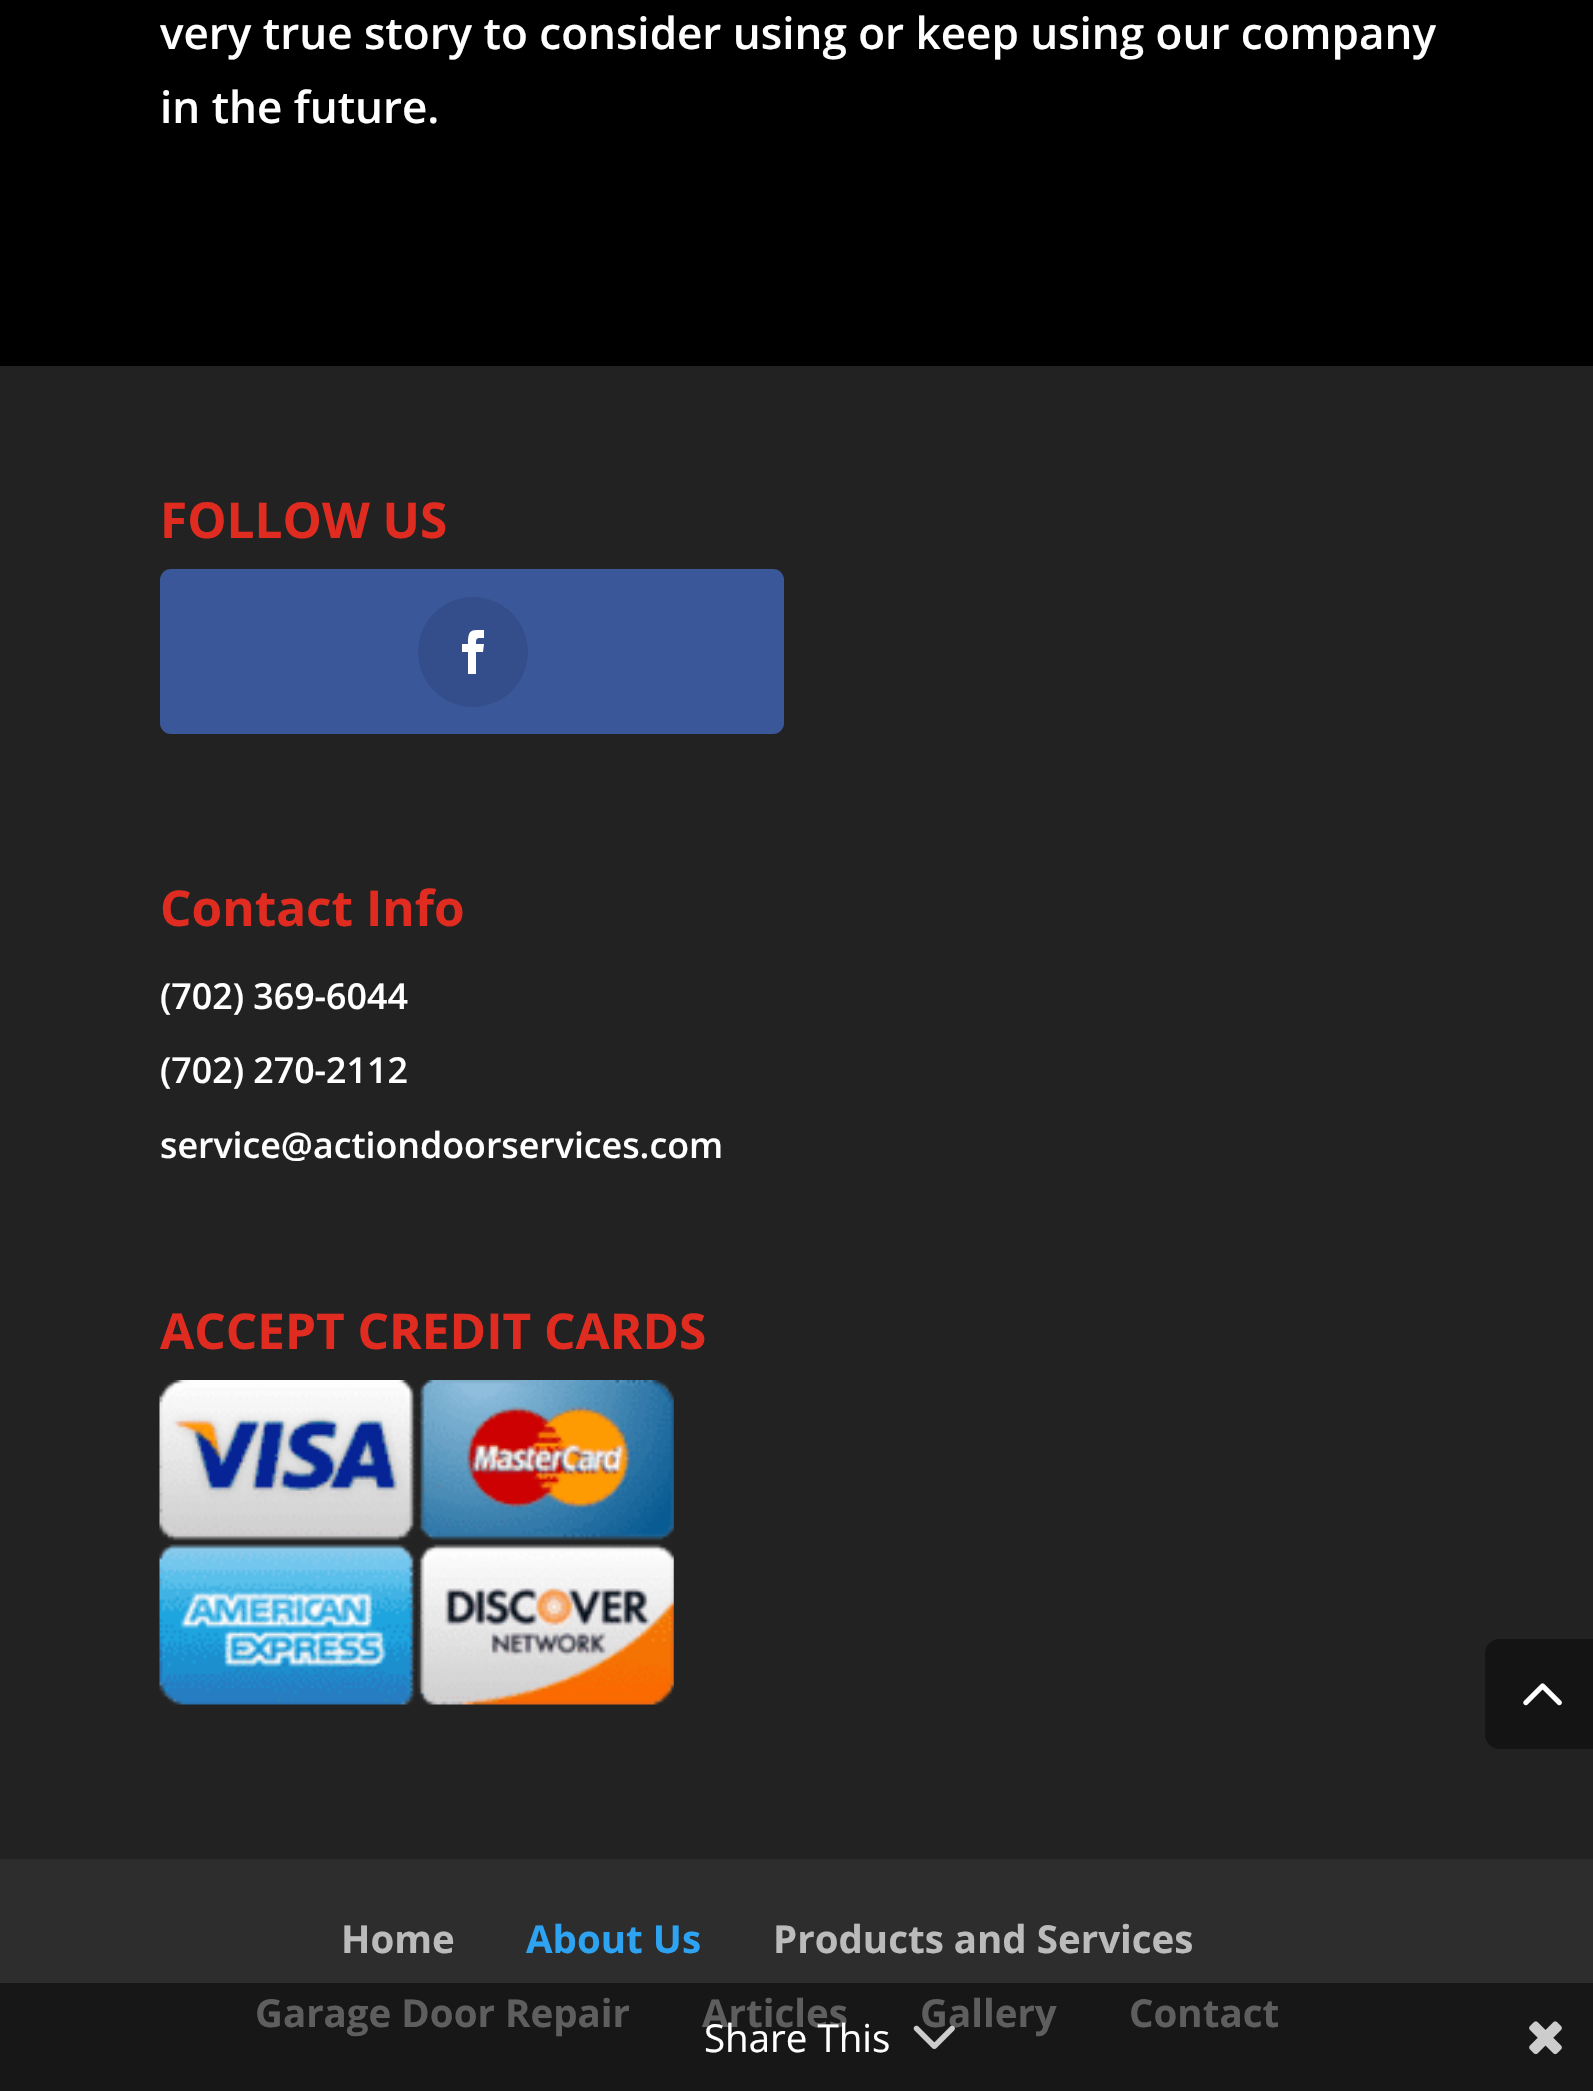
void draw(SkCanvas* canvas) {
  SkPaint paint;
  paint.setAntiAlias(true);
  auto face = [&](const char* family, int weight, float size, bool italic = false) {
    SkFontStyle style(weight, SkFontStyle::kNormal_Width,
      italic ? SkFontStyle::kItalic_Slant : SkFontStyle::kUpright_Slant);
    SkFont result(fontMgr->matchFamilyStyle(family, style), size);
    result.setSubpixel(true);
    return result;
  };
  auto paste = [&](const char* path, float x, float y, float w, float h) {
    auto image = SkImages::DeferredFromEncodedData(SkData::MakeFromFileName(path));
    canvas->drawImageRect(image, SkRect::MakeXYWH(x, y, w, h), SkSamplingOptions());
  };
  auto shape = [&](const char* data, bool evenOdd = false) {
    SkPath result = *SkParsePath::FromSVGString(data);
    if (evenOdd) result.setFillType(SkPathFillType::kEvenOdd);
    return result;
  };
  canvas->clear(0xff222222);
  paint.setColor(0xff000000);
  canvas->drawRect(SkRect::MakeXYWH(0, 0, 1593, 366), paint);
  paint.setColor(0xff3a579a);
  canvas->drawRoundRect(SkRect::MakeXYWH(160, 569, 624, 165), 11, 11, paint);
  paint.setColor(0xff344e8b);
  canvas->drawCircle(473, 652, 55, paint);
  paint.setColor(0xffffffff);
  canvas->drawPath(shape("M476 674H468V652H462V644H468C468 629 471 630 484 630V638C477 638 476 637 476 644H484L483 652H476Z"), paint);
  paste("img/1.png", 159, 1380, 515, 325);
  paint.setColor(0xff2d2d2d);
  canvas->drawRect(SkRect::MakeXYWH(0, 1859, 1593, 124), paint);
  paint.setColor(0xff171717);
  canvas->drawRect(SkRect::MakeXYWH(0, 1983, 1593, 108), paint);
  paint.setColor(0xff141414);
  canvas->drawPath(shape("M1499 1639H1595V1749H1499C1491.5 1749 1485 1742.5 1485 1735V1653C1485 1645.5 1491.5 1639 1499 1639Z"), paint);
  paste("img/2.png", 1523, 1683, 39, 23);
  paste("img/4.png", 1529, 2021, 33, 34);
  auto f0 = face("Open Sans", 600, 44);
  paint.setColor(0xffffffff);
  canvas->drawString("very true story to consider using or keep using our company", 160, 49, f0, paint);
  canvas->drawString("in the future.", 160, 123, f0, paint);
  auto f1 = face("Open Sans", 700, 49.5f);
  paint.setColor(0xffe02b20);
  canvas->drawString("FOLLOW US", 160, 538, f1, paint);
  canvas->drawString("Contact Info", 160, 926, f1, paint);
  auto f2 = face("Open Sans", 600, 35.75f);
  paint.setColor(0xffffffff);
  {
    const struct { const char* s; float x, y; } items[] = {
      {"(702) 369-6044", 160, 1009},
      {"(702) 270-2112", 160, 1083},
      {"service@actiondoorservices.com", 160, 1158},
    };
    for (auto [s, x, y] : items) {
      canvas->drawString(s, x, y, f2, paint);
    }
  }
  paint.setColor(0xffe02b20);
  canvas->drawString("ACCEPT CREDIT CARDS", 160, 1349, f1, paint);
  auto f3 = face("Open Sans", 700, 38.5f);
  paint.setColor(0xffbbbbbb);
  canvas->drawString("Home", 341, 1953, f3, paint);
  paint.setColor(0xff2ea3f2);
  canvas->drawString("About Us", 526, 1953, f3, paint);
  paint.setColor(0xffbbbbbb);
  canvas->drawString("Products and Services", 773, 1953, f3, paint);
  paint.setColor(0xff5e5e5e);
  {
    const struct { const char* s; float x, y; } items[] = {
      {"Garage Door Repair", 255, 2027},
      {"Articles", 702, 2027},
      {"Gallery", 920, 2027},
      {"Contact", 1129, 2027},
    };
    for (auto [s, x, y] : items) {
      canvas->drawString(s, x, y, f3, paint);
    }
  }
  auto f4 = face("Open Sans", 400, 38.5f);
  paint.setColor(0xffffffff);
  canvas->drawString("Share This", 704, 2052, f4, paint);
  paste("img/3.png", 913, 2025, 42, 24);
}
